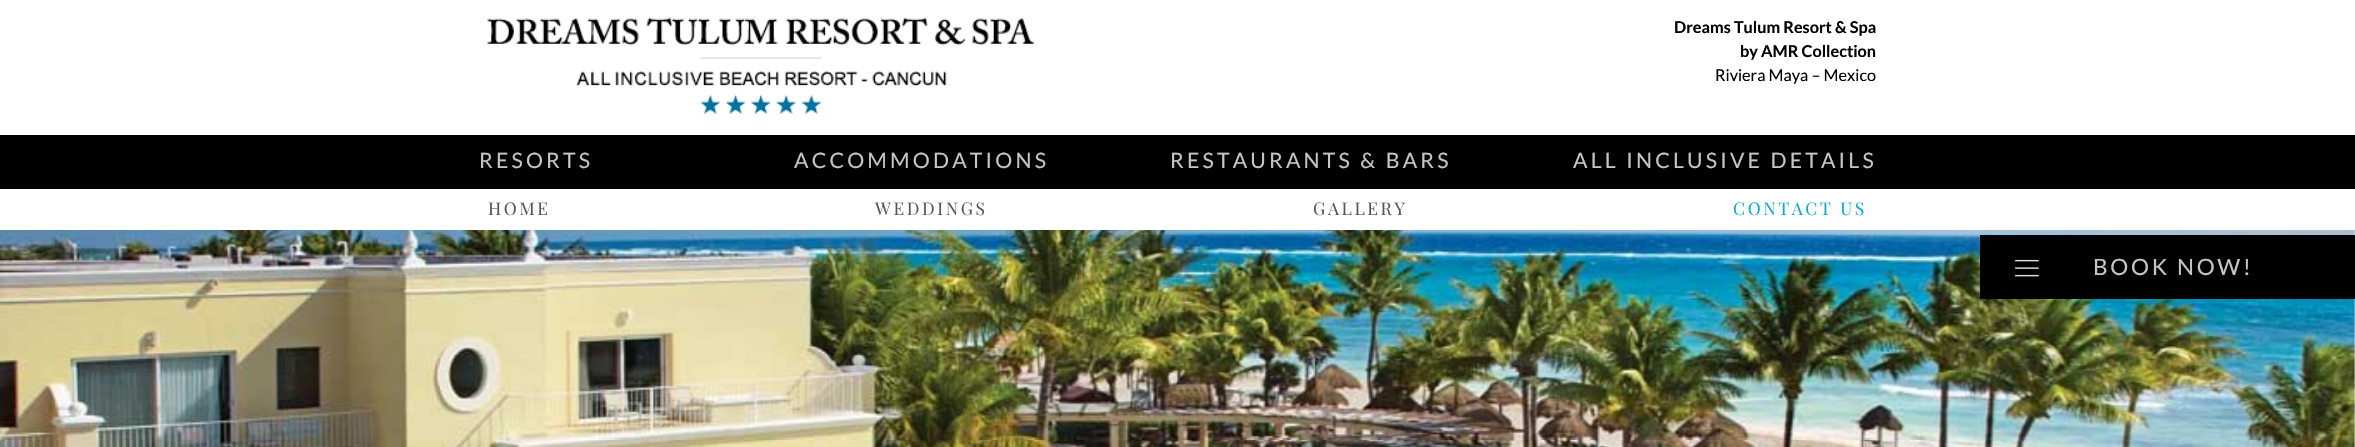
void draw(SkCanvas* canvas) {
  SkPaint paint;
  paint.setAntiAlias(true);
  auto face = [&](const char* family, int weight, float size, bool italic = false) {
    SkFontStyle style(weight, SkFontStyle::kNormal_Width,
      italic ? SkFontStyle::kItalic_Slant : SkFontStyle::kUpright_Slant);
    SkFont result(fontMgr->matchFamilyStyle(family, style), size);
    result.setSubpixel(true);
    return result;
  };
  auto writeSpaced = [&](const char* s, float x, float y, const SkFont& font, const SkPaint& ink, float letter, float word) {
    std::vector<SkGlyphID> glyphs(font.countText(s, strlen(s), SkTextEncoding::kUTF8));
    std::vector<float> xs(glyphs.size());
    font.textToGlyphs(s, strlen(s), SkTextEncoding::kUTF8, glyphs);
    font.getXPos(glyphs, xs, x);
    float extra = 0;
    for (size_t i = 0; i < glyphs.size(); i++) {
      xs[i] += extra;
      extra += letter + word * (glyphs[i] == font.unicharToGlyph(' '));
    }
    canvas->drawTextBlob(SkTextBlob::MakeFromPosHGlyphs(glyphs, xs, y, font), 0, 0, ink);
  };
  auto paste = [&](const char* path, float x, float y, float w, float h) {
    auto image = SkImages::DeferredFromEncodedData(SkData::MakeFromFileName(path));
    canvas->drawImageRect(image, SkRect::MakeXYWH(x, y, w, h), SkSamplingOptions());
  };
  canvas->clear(0xffffffff);
  paste("img/1.png", 487, 17, 547, 97);
  paint.setColor(0xff000000);
  canvas->drawRect(SkRect::MakeXYWH(0, 135, 2355, 54), paint);
  paste("img/3.png", 0, 230, 2355, 217);
  canvas->drawRect(SkRect::MakeXYWH(1980, 235, 375, 64), paint);
  paste("img/2.png", 2014, 259, 25, 18);
  auto f0 = face("Lato", 700, 16.25f);
  canvas->drawString("Dreams Tulum Resort & Spa", 1674, 33, f0, paint);
  canvas->drawString("by AMR Collection", 1740, 57, f0, paint);
  auto f1 = face("Lato", 400, 16.25f);
  canvas->drawString("Riviera Maya – Mexico", 1715, 81, f1, paint);
  auto f2 = face("Lato", 400, 21.25f);
  paint.setColor(0xffc5c5c5);
  {
    const struct { const char* s; float x, y; } items[] = {
      {"RESORTS", 479, 168},
      {"ACCOMMODATIONS", 794, 168},
      {"RESTAURANTS & BARS", 1170, 168},
      {"ALL INCLUSIVE DETAILS", 1573, 168},
    };
    for (auto [s, x, y] : items) {
      writeSpaced(s, x, y, f2, paint, 3.2f, 0);
    }
  }
  auto f3 = face("Lato", 400, 22.5f);
  writeSpaced("BOOK NOW!", 2093, 275, f3, paint, 2.75f, 0);
  auto f4 = face("Playfair Display", 400, 17.5f);
  paint.setColor(0xff555555);
  {
    const struct { const char* s; float x, y; } items[] = {
      {"HOME", 488, 215},
      {"WEDDINGS", 875, 215},
      {"GALLERY", 1313, 215},
    };
    for (auto [s, x, y] : items) {
      writeSpaced(s, x, y, f4, paint, 2.6f, 0);
    }
  }
  paint.setColor(0xff04abce);
  writeSpaced("CONTACT US", 1733, 215, f4, paint, 2.6f, 0);
}
